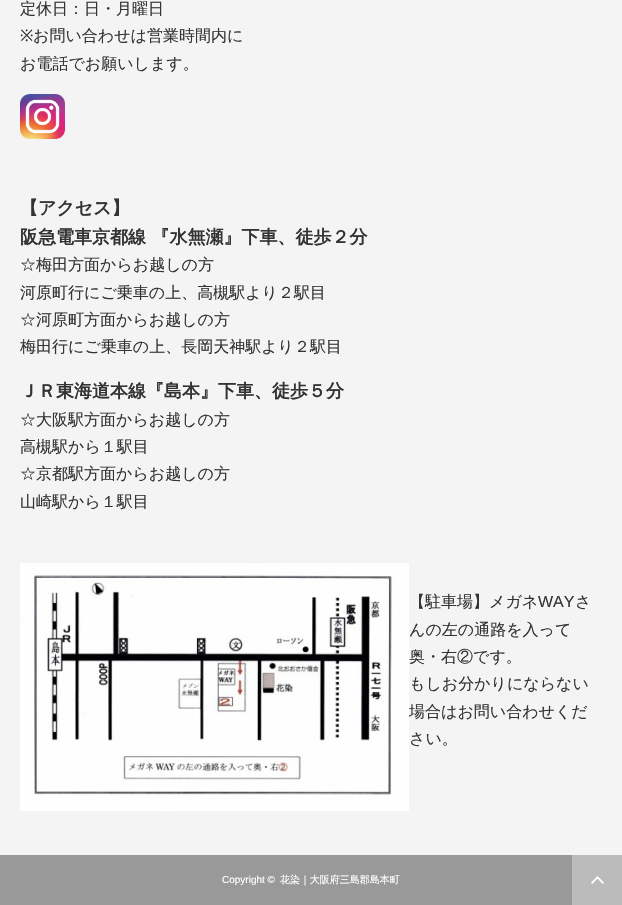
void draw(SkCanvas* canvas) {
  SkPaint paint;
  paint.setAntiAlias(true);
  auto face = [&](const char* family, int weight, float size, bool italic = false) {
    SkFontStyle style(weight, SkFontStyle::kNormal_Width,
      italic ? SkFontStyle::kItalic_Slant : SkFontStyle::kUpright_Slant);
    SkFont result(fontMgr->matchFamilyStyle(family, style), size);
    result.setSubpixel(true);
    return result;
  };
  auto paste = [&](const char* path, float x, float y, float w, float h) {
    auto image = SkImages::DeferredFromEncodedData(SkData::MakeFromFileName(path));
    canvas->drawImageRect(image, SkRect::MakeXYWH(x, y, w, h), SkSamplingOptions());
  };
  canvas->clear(0xfff4f4f4);
  paste("img/1.png", 20, 94, 45, 45);
  paste("img/2.png", 20, 563, 389, 248);
  paint.setColor(0xff999999);
  canvas->drawRect(SkRect::MakeXYWH(0, 855, 572, 50), paint);
  paint.setColor(0xffbbbbbb);
  canvas->drawRect(SkRect::MakeXYWH(572, 855, 50, 50), paint);
  paste("img/3.png", 591, 876, 13, 8);
  auto f0 = face("WenQuanYi Zen Hei", 500, 16);
  paint.setColor(0xff333333);
  canvas->drawString("定休日：日・月曜日", 20, 14, f0, paint);
  auto f1 = face("Noto Sans", 400, 16);
  canvas->drawString("※", 20, 41, f1, paint);
  canvas->drawString("お問い合わせは営業時間内に", 33, 41, f0, paint);
  canvas->drawString("お電話でお願いします。", 20, 69, f0, paint);
  auto f2 = face("WenQuanYi Zen Hei", 700, 18);
  canvas->drawString("【アクセス】", 20, 214, f2, paint);
  canvas->drawString("阪急電車京都線 『水無瀬』下車、徒歩２分", 20, 243, f2, paint);
  {
    const struct { const char* s; float x, y; } items[] = {
      {"☆梅田方面からお越しの方", 20, 270},
      {"河原町行にご乗車の上、高槻駅より２駅目", 20, 298},
      {"☆河原町方面からお越しの方", 20, 325},
      {"梅田行にご乗車の上、長岡天神駅より２駅目", 20, 352},
    };
    for (auto [s, x, y] : items) {
      canvas->drawString(s, x, y, f0, paint);
    }
  }
  canvas->drawString("ＪＲ東海道本線『島本』下車、徒歩５分", 20, 397, f2, paint);
  {
    const struct { const char* s; float x, y; } items[] = {
      {"☆大阪駅方面からお越しの方", 20, 425},
      {"高槻駅から１駅目", 20, 452},
      {"☆京都駅方面からお越しの方", 20, 479},
      {"山崎駅から１駅目", 20, 507},
      {"【駐車場】メガネ", 409, 607},
    };
    for (auto [s, x, y] : items) {
      canvas->drawString(s, x, y, f0, paint);
    }
  }
  auto f3 = face("Liberation Sans", 400, 16);
  canvas->drawString("WAY", 538, 607, f3, paint);
  {
    const struct { const char* s; float x, y; } items[] = {
      {"さ", 575, 607},
      {"んの左の通路を入って", 409, 635},
      {"奥・右②です。", 409, 662},
      {"もしお分かりにならない", 409, 689},
      {"場合はお問い合わせくだ", 409, 717},
      {"さい。", 409, 744},
    };
    for (auto [s, x, y] : items) {
      canvas->drawString(s, x, y, f0, paint);
    }
  }
  auto f4 = face("Liberation Sans", 400, 10);
  paint.setColor(0xffffffff);
  canvas->drawString("Copyright ©", 222, 883, f4, paint);
  auto f5 = face("WenQuanYi Zen Hei", 500, 10);
  canvas->drawString("花染｜大阪府三島郡島本町", 280, 883, f5, paint);
}
